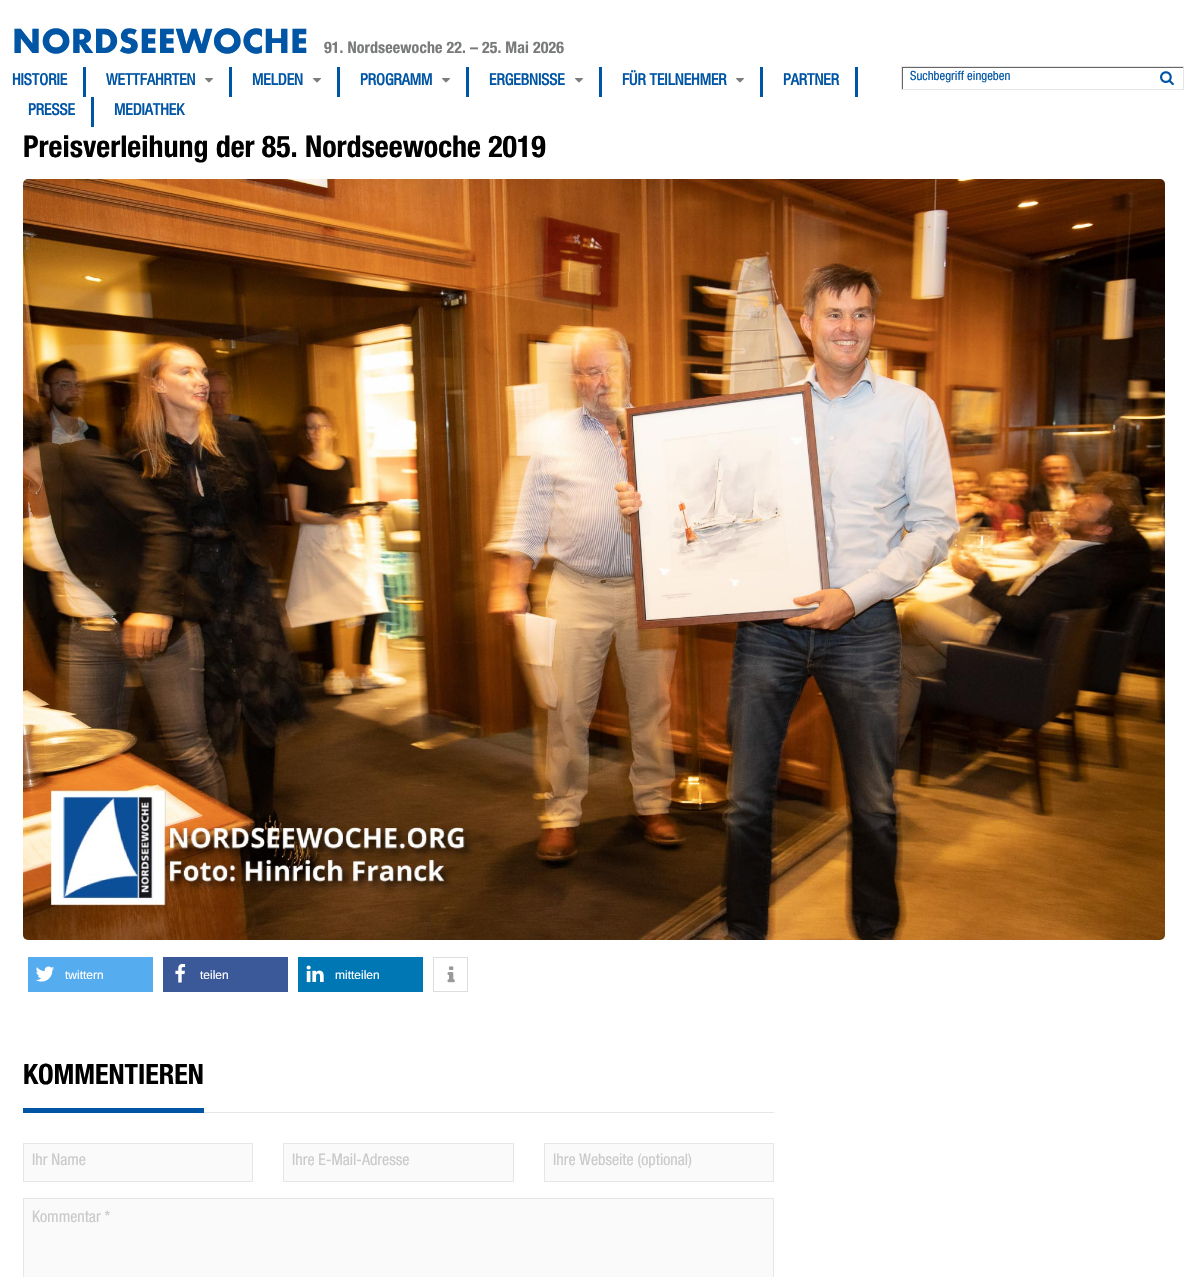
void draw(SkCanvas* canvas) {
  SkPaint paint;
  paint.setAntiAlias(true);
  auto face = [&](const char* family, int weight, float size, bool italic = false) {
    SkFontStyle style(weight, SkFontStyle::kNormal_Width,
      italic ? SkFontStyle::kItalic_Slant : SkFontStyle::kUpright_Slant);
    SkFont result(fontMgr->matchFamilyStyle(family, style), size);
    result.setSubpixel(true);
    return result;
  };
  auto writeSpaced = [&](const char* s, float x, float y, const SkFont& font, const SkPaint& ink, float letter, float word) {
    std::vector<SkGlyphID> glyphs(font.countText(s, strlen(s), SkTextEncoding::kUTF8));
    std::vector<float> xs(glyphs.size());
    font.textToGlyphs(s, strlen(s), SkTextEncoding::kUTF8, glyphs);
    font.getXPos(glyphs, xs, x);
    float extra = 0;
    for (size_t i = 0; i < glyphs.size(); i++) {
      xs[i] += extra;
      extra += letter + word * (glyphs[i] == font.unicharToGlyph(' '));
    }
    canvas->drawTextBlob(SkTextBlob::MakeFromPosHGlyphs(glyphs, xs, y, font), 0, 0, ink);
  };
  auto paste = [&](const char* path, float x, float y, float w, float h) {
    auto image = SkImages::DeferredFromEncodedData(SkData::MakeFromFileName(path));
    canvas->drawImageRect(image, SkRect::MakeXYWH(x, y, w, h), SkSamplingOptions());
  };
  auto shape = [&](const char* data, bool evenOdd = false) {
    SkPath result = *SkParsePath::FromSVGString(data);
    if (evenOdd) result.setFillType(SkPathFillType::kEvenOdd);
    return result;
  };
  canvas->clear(0xffffffff);
  paint.setColor(0xff0055a5);
  canvas->drawRect(SkRect::MakeXYWH(83, 67, 3, 30), paint);
  canvas->drawRect(SkRect::MakeXYWH(229, 67, 3, 30), paint);
  paste("img/1.png", 205, 78, 8, 5);
  canvas->drawRect(SkRect::MakeXYWH(337, 67, 3, 30), paint);
  paste("img/1.png", 313, 78, 8, 5);
  canvas->drawRect(SkRect::MakeXYWH(466, 67, 3, 30), paint);
  paste("img/1.png", 442, 78, 8, 5);
  canvas->drawRect(SkRect::MakeXYWH(599, 67, 3, 30), paint);
  paste("img/1.png", 575, 78, 8, 5);
  canvas->drawRect(SkRect::MakeXYWH(760, 67, 3, 30), paint);
  paste("img/1.png", 736, 78, 8, 5);
  canvas->drawRect(SkRect::MakeXYWH(855, 67, 3, 30), paint);
  canvas->drawRect(SkRect::MakeXYWH(91, 97, 3, 30), paint);
  canvas->save();
  canvas->clipRect(SkRect::MakeXYWH(902, 67, 281, 22));
  paint.setColor(0xff666666);
  canvas->drawPath(shape("M803-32H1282V188H803ZM903 68H1184V90H903Z", true), paint);
  canvas->restore();
  paint.setStroke(true);
  paint.setStrokeWidth(1);
  paint.setColor(0xffe6e6e6);
  canvas->drawRect(SkRect::MakeXYWH(901.5f, 66.5f, 282, 23), paint);
  paste("img/2.png", 1160, 71, 14, 15);
  paste("img/3.png", 23, 179, 1142, 761);
  paint.setStroke(false);
  paint.setColor(0xff55acee);
  canvas->drawRect(SkRect::MakeXYWH(28, 957, 125, 35), paint);
  paste("img/4.png", 35, 966, 19, 16);
  paint.setColor(0xff3b5998);
  canvas->drawRect(SkRect::MakeXYWH(163, 957, 125, 35), paint);
  paste("img/5.png", 175, 963, 11, 20);
  paint.setColor(0xff0077b5);
  canvas->drawRect(SkRect::MakeXYWH(298, 957, 125, 35), paint);
  paste("img/6.png", 306, 965, 18, 18);
  paint.setStroke(true);
  paint.setColor(0xffdddddd);
  canvas->drawRect(SkRect::MakeXYWH(433.5f, 957.5f, 34, 34), paint);
  paste("img/7.png", 447, 966, 8, 17);
  paint.setStroke(false);
  paint.setColor(0xff0055a5);
  canvas->drawRect(SkRect::MakeXYWH(23, 1108, 181, 5), paint);
  paint.setColor(0xffe6e6e6);
  canvas->drawRect(SkRect::MakeXYWH(204, 1112, 570, 1), paint);
  paint.setColor(0xfffafafa);
  canvas->drawRect(SkRect::MakeXYWH(23.5f, 1143.5f, 229, 38), paint);
  paint.setStroke(true);
  paint.setColor(0xffe6e6e6);
  canvas->drawRect(SkRect::MakeXYWH(23.5f, 1143.5f, 229, 38), paint);
  paint.setStroke(false);
  paint.setColor(0xfffafafa);
  canvas->drawRect(SkRect::MakeXYWH(283.5f, 1143.5f, 230, 38), paint);
  paint.setStroke(true);
  paint.setColor(0xffe6e6e6);
  canvas->drawRect(SkRect::MakeXYWH(283.5f, 1143.5f, 230, 38), paint);
  paint.setStroke(false);
  paint.setColor(0xfffafafa);
  canvas->drawRect(SkRect::MakeXYWH(544.5f, 1143.5f, 229, 38), paint);
  paint.setStroke(true);
  paint.setColor(0xffe6e6e6);
  canvas->drawRect(SkRect::MakeXYWH(544.5f, 1143.5f, 229, 38), paint);
  paint.setStroke(false);
  paint.setColor(0xfffafafa);
  canvas->drawRect(SkRect::MakeXYWH(23.5f, 1198.5f, 750, 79), paint);
  paint.setStroke(true);
  paint.setColor(0xffe6e6e6);
  canvas->drawRect(SkRect::MakeXYWH(23.5f, 1198.5f, 750, 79), paint);
  auto f0 = face("Futura", 700, 32);
  paint.setStroke(false);
  paint.setColor(0xff0055a5);
  canvas->drawString("NORDSEEWOCHE", 12, 53, f0, paint);
  auto f1 = face("Helvetica Neue", 700, 16);
  paint.setColor(0xff787b7a);
  writeSpaced("91. Nordseewoche 22. – 25. Mai 2026", 324, 53, f1, paint, 0.1f, 0);
  auto f2 = face("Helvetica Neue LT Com", 700, 16);
  paint.setColor(0xff0055a5);
  {
    const struct { const char* s; float x, y; } items[] = {
      {"HISTORIE", 12, 85},
      {"WETTFAHRTEN", 106, 85},
      {"MELDEN", 252, 85},
      {"PROGRAMM", 360, 85},
      {"ERGEBNISSE", 489, 85},
      {"FÜR TEILNEHMER", 622, 85},
      {"PARTNER", 783, 85},
      {"PRESSE", 28, 115},
      {"MEDIATHEK", 114, 115},
    };
    for (auto [s, x, y] : items) {
      canvas->drawString(s, x, y, f2, paint);
    }
  }
  auto f3 = face("Helvetica Neue LT Com", 400, 12.75f);
  canvas->drawString("Suchbegriff eingeben", 910, 80, f3, paint);
  auto f4 = face("Helvetica Neue", 700, 30);
  paint.setColor(0xff000000);
  canvas->drawString("Preisverleihung der 85. Nordseewoche 2019", 23, 157, f4, paint);
  auto f5 = face("Liberation Sans", 400, 12);
  paint.setColor(0xffffffff);
  {
    const struct { const char* s; float x, y; } items[] = {
      {"twittern", 65, 979},
      {"teilen", 200, 979},
      {"mitteilen", 335, 979},
    };
    for (auto [s, x, y] : items) {
      canvas->drawString(s, x, y, f5, paint);
    }
  }
  auto f6 = face("Helvetica Neue", 700, 28);
  paint.setColor(0xff000000);
  canvas->drawString("KOMMENTIEREN", 23, 1084, f6, paint);
  auto f7 = face("Helvetica Neue LT Com", 400, 16);
  paint.setColor(0xffcacaca);
  {
    const struct { const char* s; float x, y; } items[] = {
      {"Ihr Name", 32, 1165},
      {"Ihre E-Mail-Adresse", 292, 1165},
      {"Ihre Webseite (optional)", 553, 1165},
      {"Kommentar *", 32, 1222},
    };
    for (auto [s, x, y] : items) {
      canvas->drawString(s, x, y, f7, paint);
    }
  }
}
